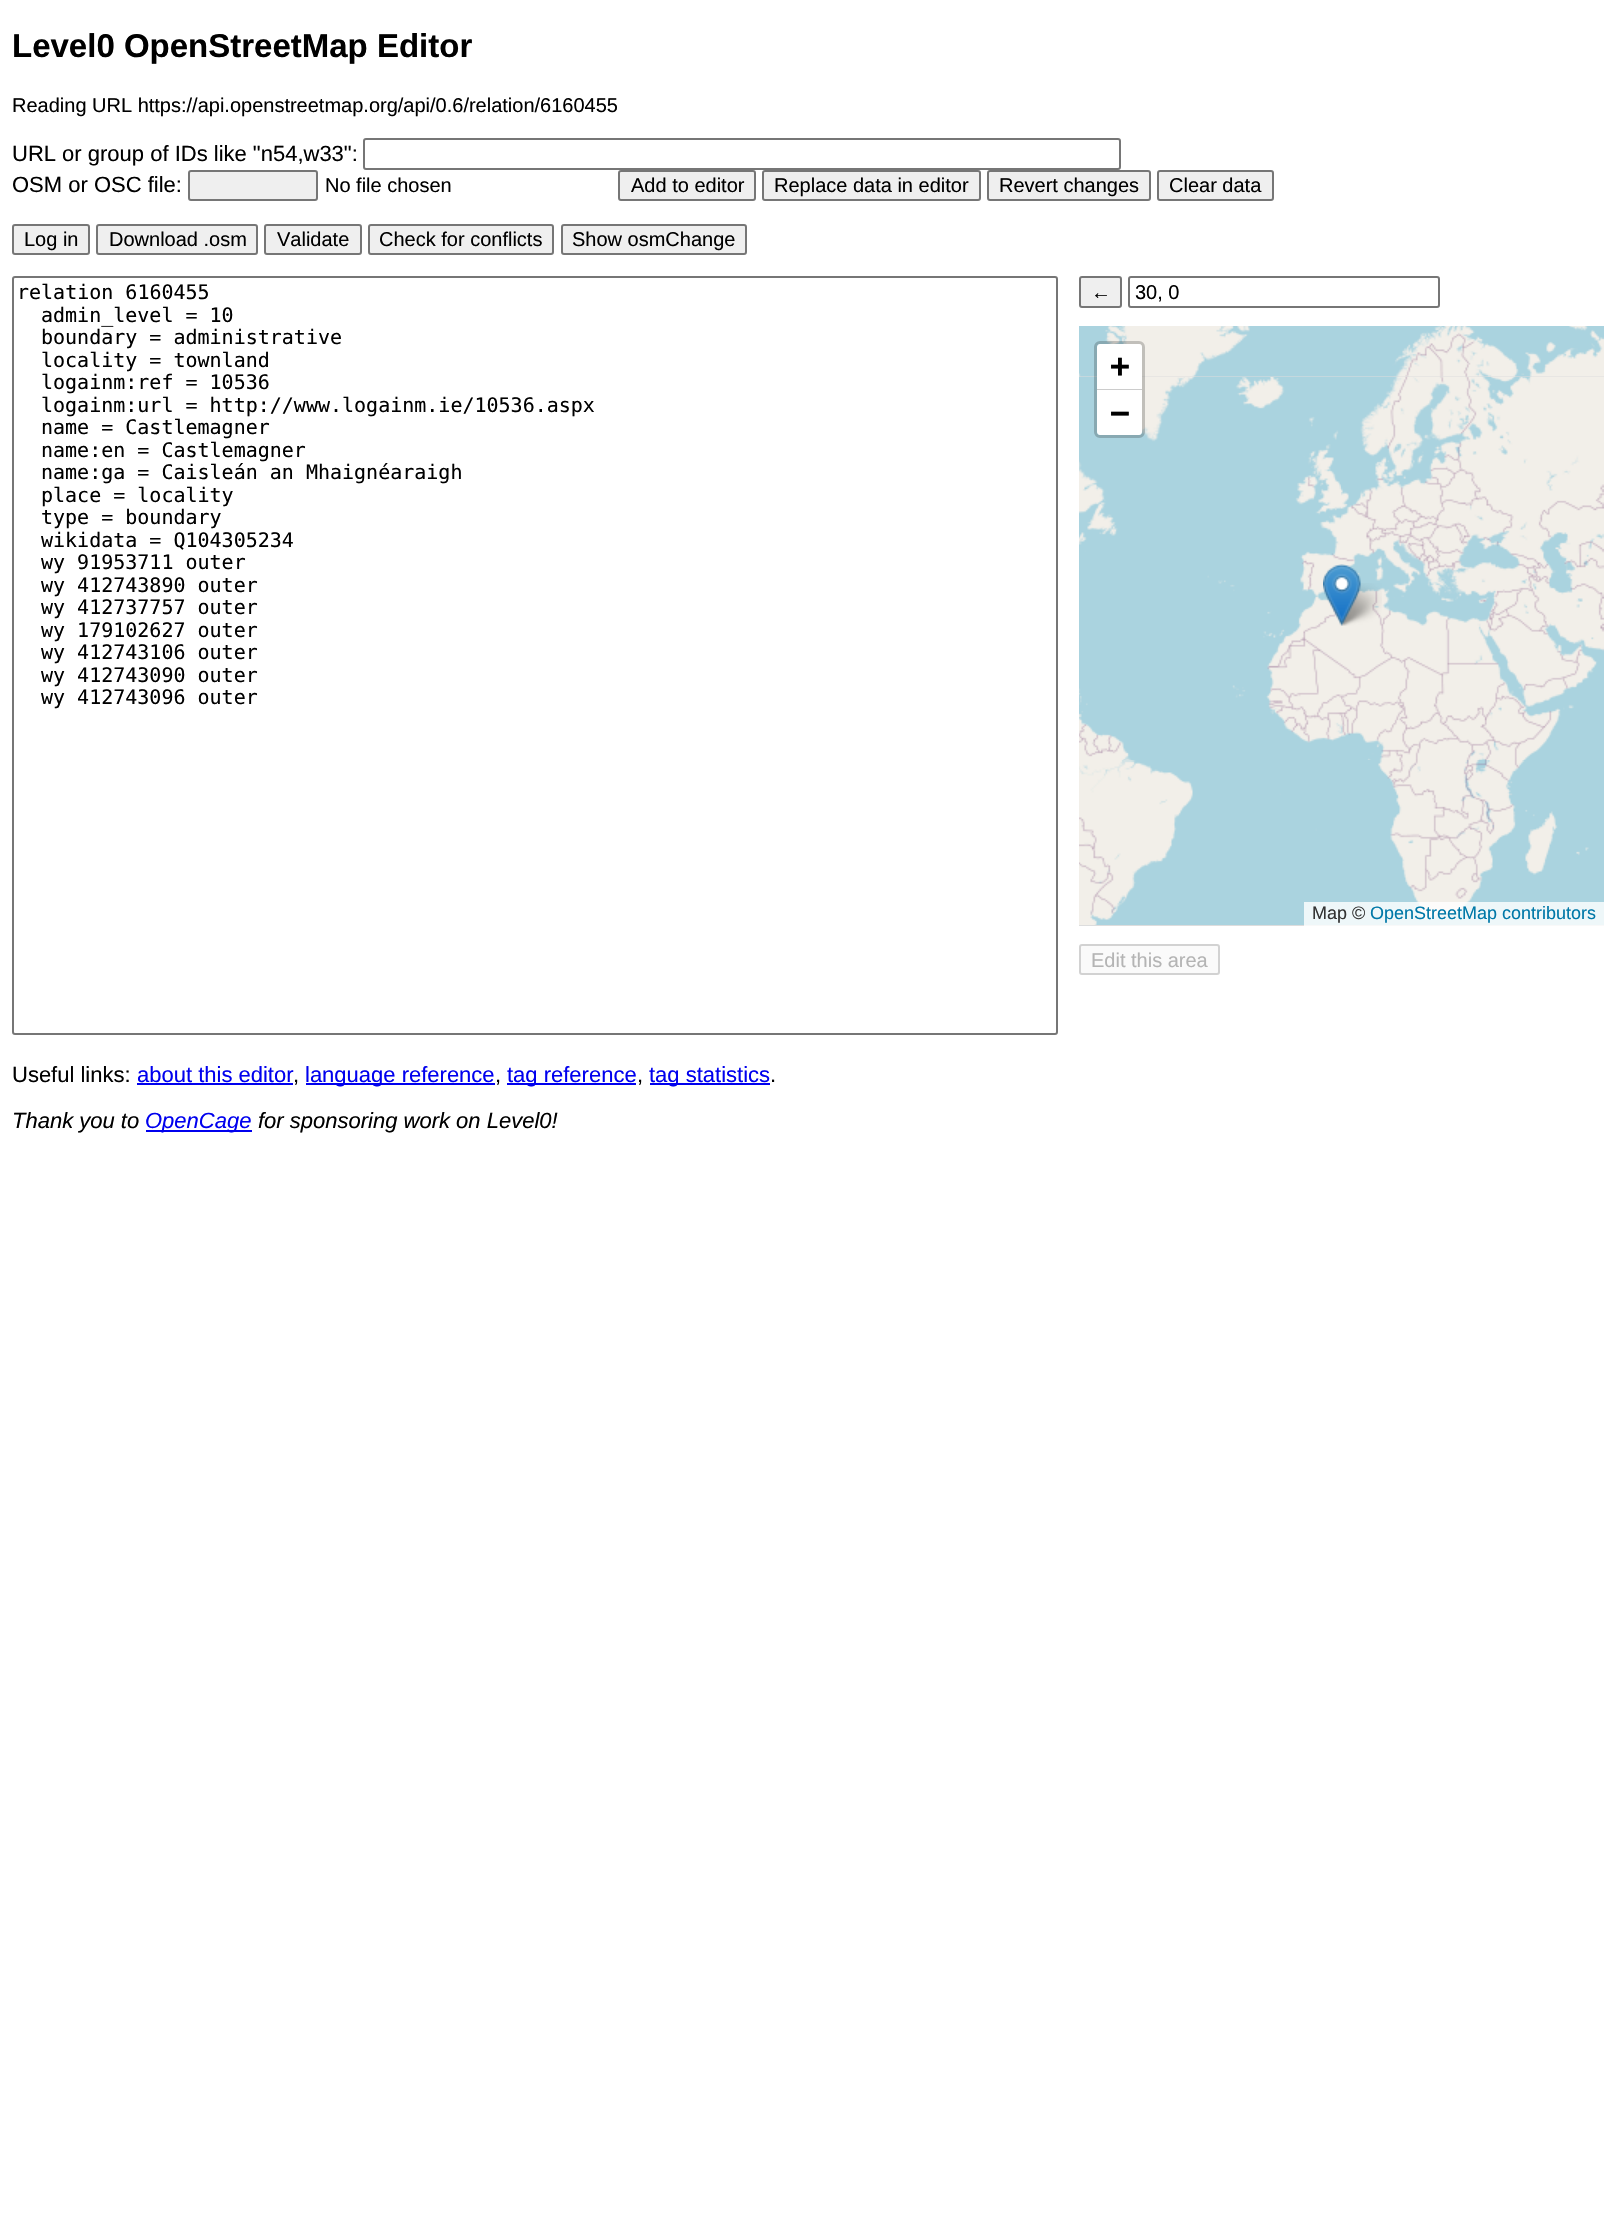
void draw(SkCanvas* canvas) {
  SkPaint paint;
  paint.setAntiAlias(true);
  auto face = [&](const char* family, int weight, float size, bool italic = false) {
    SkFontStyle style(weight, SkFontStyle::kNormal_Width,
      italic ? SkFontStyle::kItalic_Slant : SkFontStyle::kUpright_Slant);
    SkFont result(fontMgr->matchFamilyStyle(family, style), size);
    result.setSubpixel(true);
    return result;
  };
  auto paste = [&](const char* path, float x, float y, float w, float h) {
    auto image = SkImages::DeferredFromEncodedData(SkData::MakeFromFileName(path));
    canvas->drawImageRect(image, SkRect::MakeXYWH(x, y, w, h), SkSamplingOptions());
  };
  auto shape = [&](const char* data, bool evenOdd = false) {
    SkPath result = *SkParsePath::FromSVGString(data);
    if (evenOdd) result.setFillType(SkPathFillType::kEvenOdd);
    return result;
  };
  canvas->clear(0xffffffff);
  paint.setStroke(true);
  paint.setStrokeWidth(2);
  paint.setColor(0xff767676);
  canvas->drawRoundRect(SkRect::MakeXYWH(364, 139, 756, 30), 2, 2, paint);
  paint.setStroke(false);
  paint.setColor(0xffefefef);
  canvas->drawRoundRect(SkRect::MakeXYWH(189, 171, 128, 29), 2, 2, paint);
  paint.setStroke(true);
  paint.setColor(0xff767676);
  canvas->drawRoundRect(SkRect::MakeXYWH(189, 171, 128, 29), 2, 2, paint);
  paint.setStroke(false);
  paint.setColor(0xffefefef);
  canvas->drawRoundRect(SkRect::MakeXYWH(619, 171, 136, 29), 2, 2, paint);
  paint.setStroke(true);
  paint.setColor(0xff767676);
  canvas->drawRoundRect(SkRect::MakeXYWH(619, 171, 136, 29), 2, 2, paint);
  paint.setStroke(false);
  paint.setColor(0xffefefef);
  canvas->drawRoundRect(SkRect::MakeXYWH(763, 171, 217, 29), 2, 2, paint);
  paint.setStroke(true);
  paint.setColor(0xff767676);
  canvas->drawRoundRect(SkRect::MakeXYWH(763, 171, 217, 29), 2, 2, paint);
  paint.setStroke(false);
  paint.setColor(0xffefefef);
  canvas->drawRoundRect(SkRect::MakeXYWH(988, 171, 162, 29), 2, 2, paint);
  paint.setStroke(true);
  paint.setColor(0xff767676);
  canvas->drawRoundRect(SkRect::MakeXYWH(988, 171, 162, 29), 2, 2, paint);
  paint.setStroke(false);
  paint.setColor(0xffefefef);
  canvas->drawRoundRect(SkRect::MakeXYWH(1158, 171, 115, 29), 2, 2, paint);
  paint.setStroke(true);
  paint.setColor(0xff767676);
  canvas->drawRoundRect(SkRect::MakeXYWH(1158, 171, 115, 29), 2, 2, paint);
  paint.setStroke(false);
  paint.setColor(0xffefefef);
  canvas->drawRoundRect(SkRect::MakeXYWH(13, 225, 76, 29), 2, 2, paint);
  paint.setStroke(true);
  paint.setColor(0xff767676);
  canvas->drawRoundRect(SkRect::MakeXYWH(13, 225, 76, 29), 2, 2, paint);
  paint.setStroke(false);
  paint.setColor(0xffefefef);
  canvas->drawRoundRect(SkRect::MakeXYWH(97, 225, 160, 29), 2, 2, paint);
  paint.setStroke(true);
  paint.setColor(0xff767676);
  canvas->drawRoundRect(SkRect::MakeXYWH(97, 225, 160, 29), 2, 2, paint);
  paint.setStroke(false);
  paint.setColor(0xffefefef);
  canvas->drawRoundRect(SkRect::MakeXYWH(265, 225, 96, 29), 2, 2, paint);
  paint.setStroke(true);
  paint.setColor(0xff767676);
  canvas->drawRoundRect(SkRect::MakeXYWH(265, 225, 96, 29), 2, 2, paint);
  paint.setStroke(false);
  paint.setColor(0xffefefef);
  canvas->drawRoundRect(SkRect::MakeXYWH(369, 225, 184, 29), 2, 2, paint);
  paint.setStroke(true);
  paint.setColor(0xff767676);
  canvas->drawRoundRect(SkRect::MakeXYWH(369, 225, 184, 29), 2, 2, paint);
  paint.setStroke(false);
  paint.setColor(0xffefefef);
  canvas->drawRoundRect(SkRect::MakeXYWH(562, 225, 184, 29), 2, 2, paint);
  paint.setStroke(true);
  paint.setColor(0xff767676);
  canvas->drawRoundRect(SkRect::MakeXYWH(562, 225, 184, 29), 2, 2, paint);
  canvas->drawRoundRect(SkRect::MakeXYWH(13, 277, 1044, 757), 2, 2, paint);
  paint.setStroke(false);
  paint.setColor(0xffefefef);
  canvas->drawRoundRect(SkRect::MakeXYWH(1080, 277, 41, 30), 2, 2, paint);
  paint.setStroke(true);
  paint.setColor(0xff767676);
  canvas->drawRoundRect(SkRect::MakeXYWH(1080, 277, 41, 30), 2, 2, paint);
  canvas->drawRoundRect(SkRect::MakeXYWH(1129, 277, 310, 30), 2, 2, paint);
  paint.setStroke(false);
  paint.setColor(0xffdddddd);
  canvas->drawRect(SkRect::MakeXYWH(1079, 376, 525, 550), paint);
  paste("img/1.png", 1079, 326, 262, 51);
  paste("img/2.png", 1341, 326, 263, 51);
  paste("img/3.png", 1079, 377, 262, 383);
  paste("img/4.png", 1341, 377, 263, 383);
  paste("img/5.png", 1079, 760, 262, 165);
  paste("img/6.png", 1341, 760, 263, 165);
  paste("img/8.png", 1336, 583, 46, 43);
  paste("img/7.png", 1323, 564, 38, 62);
  paint.setStroke(true);
  paint.setStrokeWidth(3);
  paint.setColor(0x33000000);
  canvas->drawRoundRect(SkRect::MakeXYWH(1095.5f, 342.5f, 48, 94), 4.5f, 4.5f, paint);
  paint.setStroke(false);
  paint.setColor(0xffffffff);
  canvas->drawPath(shape("M1100 344H1139C1140.5 344 1142 345.5 1142 347V390H1097V347C1097 345.5 1098.5 344 1100 344Z"), paint);
  paint.setColor(0xffcccccc);
  canvas->drawRect(SkRect::MakeXYWH(1097, 389, 45, 1), paint);
  paint.setColor(0xffffffff);
  canvas->drawPath(shape("M1097 390H1142V432C1142 433.5 1140.5 435 1139 435H1100C1098.5 435 1097 433.5 1097 432Z"), paint);
  paint.setColor(0xccffffff);
  canvas->drawRect(SkRect::MakeXYWH(1304, 902, 300, 24), paint);
  paint.setColor(0xfffafafa);
  canvas->drawRoundRect(SkRect::MakeXYWH(1080, 945, 139, 29), 2, 2, paint);
  paint.setStroke(true);
  paint.setStrokeWidth(2);
  paint.setColor(0xffd2d2d2);
  canvas->drawRoundRect(SkRect::MakeXYWH(1080, 945, 139, 29), 2, 2, paint);
  paint.setStroke(false);
  {
    const struct { float x, y, w, h; SkColor color; } items[] = {
      {137, 1083, 156, 2, 0xff0000ee},
      {306, 1083, 189, 2, 0xff0000ee},
      {507, 1083, 129, 2, 0xff0000ee},
      {650, 1083, 120, 2, 0xff0000ee},
      {146, 1130, 106, 2, 0xff0000ee},
    };
    for (auto [x, y, w, h, color] : items) {
      paint.setColor(color);
      canvas->drawRect(SkRect::MakeXYWH(x, y, w, h), paint);
    }
  }
  auto f0 = face("Liberation Sans", 700, 33);
  paint.setColor(0xff000000);
  canvas->drawString("Level0 OpenStreetMap Editor", 12, 57, f0, paint);
  auto f1 = face("Liberation Sans", 400, 20);
  canvas->drawString("Reading URL https://api.openstreetmap.org/api/0.6/relation/6160455", 12, 112, f1, paint);
  auto f2 = face("Liberation Sans", 400, 22);
  canvas->drawString("URL or group of IDs like \"n54,w33\":", 12, 161, f2, paint);
  canvas->drawString("OSM or OSC file:", 12, 192, f2, paint);
  {
    const struct { const char* s; float x, y; } items[] = {
      {"No file chosen", 325, 192},
      {"Add to editor", 631, 192},
      {"Replace data in editor", 774, 192},
      {"Revert changes", 999, 192},
      {"Clear data", 1169, 192},
      {"Log in", 24, 246},
      {"Download .osm", 109, 246},
      {"Validate", 277, 246},
      {"Check for conflicts", 379, 246},
      {"Show osmChange", 572, 246},
    };
    for (auto [s, x, y] : items) {
      canvas->drawString(s, x, y, f1, paint);
    }
  }
  auto f3 = face("DejaVu Sans Mono", 400, 20);
  {
    const struct { const char* s; float x, y; } items[] = {
      {"relation 6160455", 17, 299},
      {"admin_level = 10", 41, 322},
      {"boundary = administrative", 41, 344},
      {"locality = townland", 41, 367},
      {"logainm:ref = 10536", 41, 389},
      {"logainm:url = http://www.logainm.ie/10536.aspx", 41, 412},
      {"name = Castlemagner", 41, 434},
      {"name:en = Castlemagner", 41, 457},
      {"name:ga = Caisleán an Mhaignéaraigh", 41, 479},
      {"place = locality", 41, 502},
      {"type = boundary", 41, 524},
      {"wikidata = Q104305234", 41, 547},
      {"wy 91953711 outer", 41, 569},
      {"wy 412743890 outer", 41, 592},
      {"wy 412737757 outer", 41, 614},
      {"wy 179102627 outer", 41, 637},
      {"wy 412743106 outer", 41, 659},
      {"wy 412743090 outer", 41, 682},
      {"wy 412743096 outer", 41, 704},
    };
    for (auto [s, x, y] : items) {
      canvas->drawString(s, x, y, f3, paint);
    }
  }
  canvas->drawString("←", 1091, 299, f1, paint);
  canvas->drawString("30, 0", 1135, 299, f1, paint);
  auto f4 = face("DejaVu Sans Mono", 700, 33);
  canvas->drawString("+", 1110, 377, f4, paint);
  canvas->drawString("−", 1110, 424, f4, paint);
  auto f5 = face("Liberation Sans", 400, 18);
  paint.setColor(0xff333333);
  canvas->drawString("Map ©", 1312, 919, f5, paint);
  paint.setColor(0xff0078a8);
  canvas->drawString("OpenStreetMap contributors", 1370, 919, f5, paint);
  paint.setColor(0xffb4b4b4);
  canvas->drawString("Edit this area", 1091, 967, f1, paint);
  paint.setColor(0xff000000);
  canvas->drawString("Useful links:", 12, 1082, f2, paint);
  paint.setColor(0xff0000ee);
  canvas->drawString("about this editor", 137, 1082, f2, paint);
  paint.setColor(0xff000000);
  canvas->drawString(",", 293, 1082, f2, paint);
  paint.setColor(0xff0000ee);
  canvas->drawString("language reference", 305, 1082, f2, paint);
  paint.setColor(0xff000000);
  canvas->drawString(",", 495, 1082, f2, paint);
  paint.setColor(0xff0000ee);
  canvas->drawString("tag reference", 507, 1082, f2, paint);
  paint.setColor(0xff000000);
  canvas->drawString(",", 637, 1082, f2, paint);
  paint.setColor(0xff0000ee);
  canvas->drawString("tag statistics", 649, 1082, f2, paint);
  paint.setColor(0xff000000);
  canvas->drawString(".", 770, 1082, f2, paint);
  auto f6 = face("Liberation Sans", 400, 22, true);
  canvas->drawString("Thank you to", 12, 1128, f6, paint);
  paint.setColor(0xff0000ee);
  canvas->drawString("OpenCage", 145, 1128, f6, paint);
  paint.setColor(0xff000000);
  canvas->drawString("for sponsoring work on Level0!", 258, 1128, f6, paint);
}
